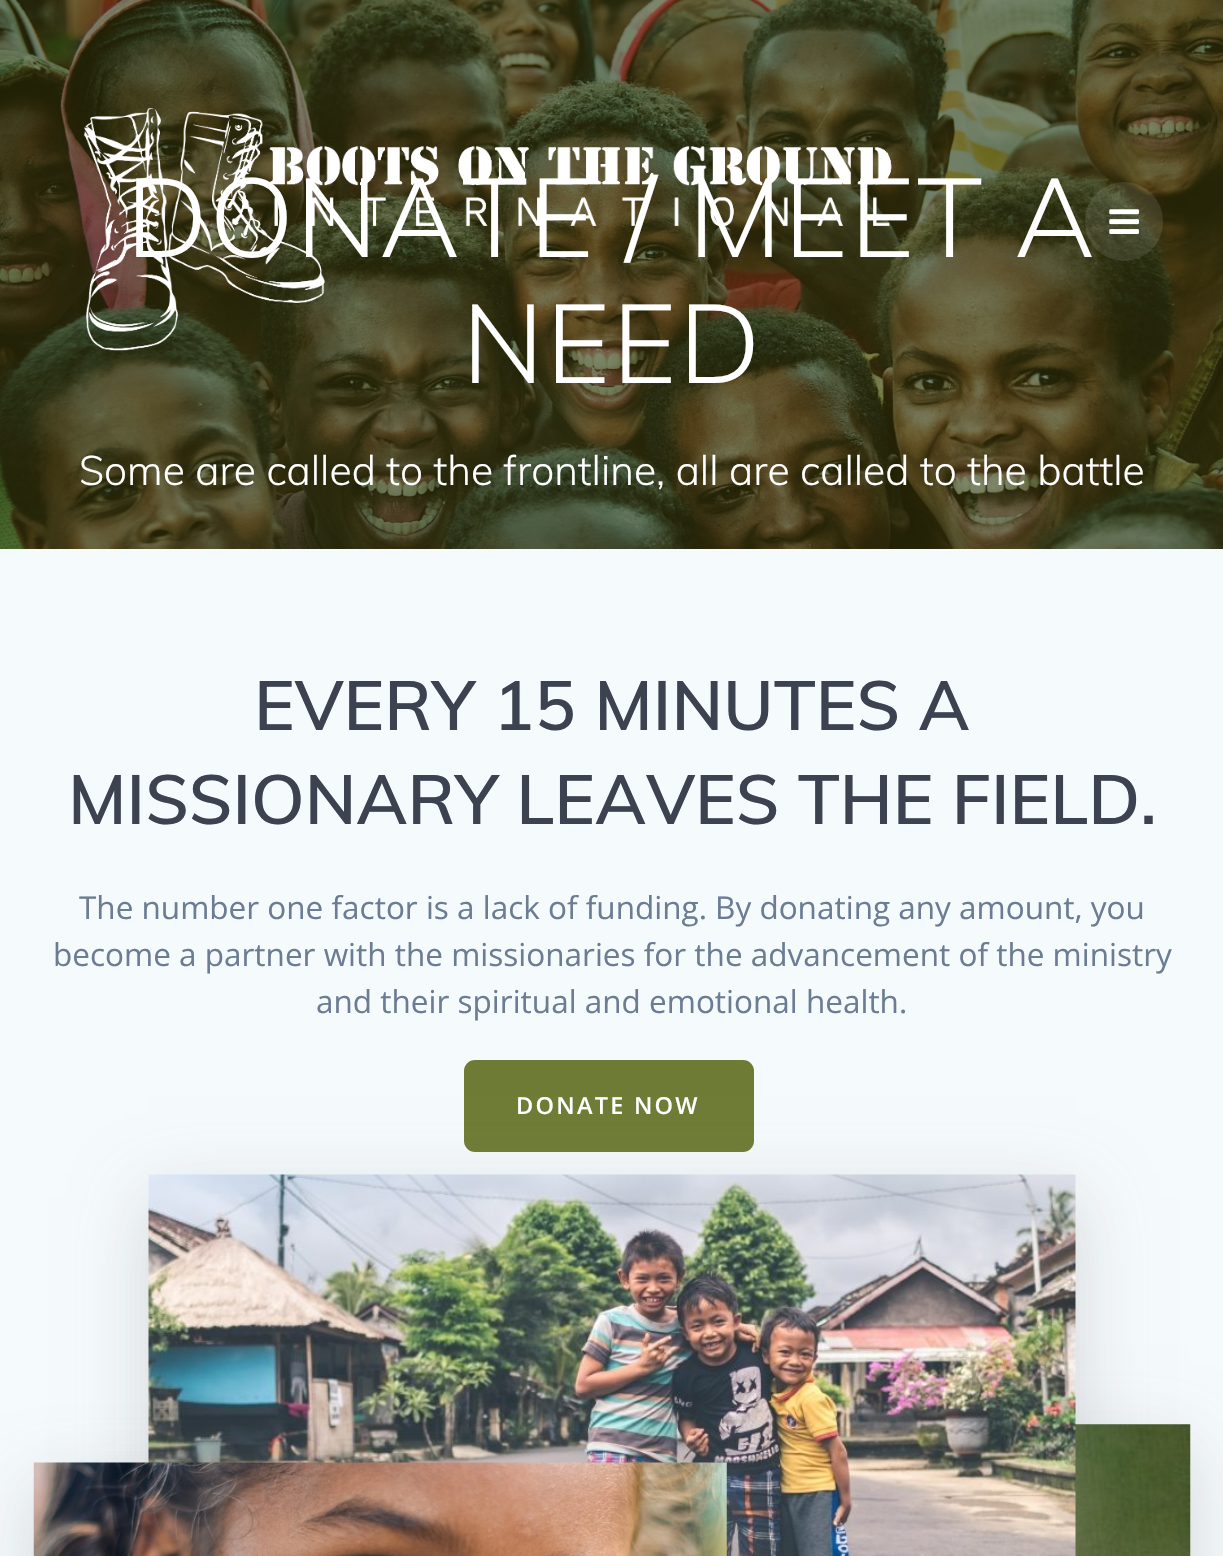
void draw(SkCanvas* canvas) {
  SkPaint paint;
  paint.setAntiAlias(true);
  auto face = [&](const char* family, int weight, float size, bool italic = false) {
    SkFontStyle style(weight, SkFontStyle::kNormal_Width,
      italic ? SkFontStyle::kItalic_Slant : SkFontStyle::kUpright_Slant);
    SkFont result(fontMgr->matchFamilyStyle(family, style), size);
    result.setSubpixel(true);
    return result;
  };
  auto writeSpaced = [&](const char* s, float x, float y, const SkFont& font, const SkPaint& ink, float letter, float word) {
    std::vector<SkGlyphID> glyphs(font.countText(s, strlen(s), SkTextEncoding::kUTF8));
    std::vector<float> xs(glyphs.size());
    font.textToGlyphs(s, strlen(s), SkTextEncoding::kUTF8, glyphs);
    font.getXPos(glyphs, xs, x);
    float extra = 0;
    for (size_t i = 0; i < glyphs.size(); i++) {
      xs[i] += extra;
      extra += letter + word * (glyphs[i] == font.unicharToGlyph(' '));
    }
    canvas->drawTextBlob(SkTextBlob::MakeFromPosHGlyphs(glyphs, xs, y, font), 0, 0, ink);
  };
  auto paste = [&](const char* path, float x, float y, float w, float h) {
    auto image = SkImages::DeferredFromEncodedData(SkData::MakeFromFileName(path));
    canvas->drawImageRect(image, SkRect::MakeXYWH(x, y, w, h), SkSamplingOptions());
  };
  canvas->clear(0xffffffff);
  paste("img/3.png", 0, 0, 1223, 549);
  paint.setColor(0x1affffff);
  canvas->drawRoundRect(SkRect::MakeXYWH(1085, 182, 78, 79), 39, 39, paint);
  paste("img/2.png", 1109, 209, 30, 25);
  paint.setColor(0xfff5fafd);
  canvas->drawRect(SkRect::MakeXYWH(0, 549, 1223, 1007), paint);
  paint.setColor(0xff6e7b34);
  canvas->drawRoundRect(SkRect::MakeXYWH(466.5f, 1062.5f, 285, 87), 8.5f, 8.5f, paint);
  paint.setStroke(true);
  paint.setStrokeWidth(5);
  canvas->drawRoundRect(SkRect::MakeXYWH(466.5f, 1062.5f, 285, 87), 8.5f, 8.5f, paint);
  paint.setStroke(false);
  paint.setColor(0x14000000);
  paint.setMaskFilter(SkMaskFilter::MakeBlur(kNormal_SkBlurStyle, 34));
  canvas->drawRect(SkRect::MakeXYWH(266, 1447, 924, 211), paint);
  paint.setMaskFilter(nullptr);
  paint.setColor(0x4dbdbdbd);
  paint.setMaskFilter(SkMaskFilter::MakeBlur(kNormal_SkBlurStyle, 34));
  canvas->drawRect(SkRect::MakeXYWH(266, 1447, 924, 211), paint);
  paint.setMaskFilter(nullptr);
  paste("img/5.png", 1075, 1424, 116, 132);
  paint.setColor(0x14000000);
  paint.setMaskFilter(SkMaskFilter::MakeBlur(kNormal_SkBlurStyle, 34));
  canvas->drawRect(SkRect::MakeXYWH(149, 1197, 927, 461), paint);
  paint.setMaskFilter(nullptr);
  paint.setColor(0x4dbdbdbd);
  paint.setMaskFilter(SkMaskFilter::MakeBlur(kNormal_SkBlurStyle, 34));
  canvas->drawRect(SkRect::MakeXYWH(149, 1197, 927, 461), paint);
  paint.setMaskFilter(nullptr);
  paste("img/4.png", 148, 1174, 928, 382);
  paint.setColor(0x14000000);
  paint.setMaskFilter(SkMaskFilter::MakeBlur(kNormal_SkBlurStyle, 34));
  canvas->drawRect(SkRect::MakeXYWH(34, 1485, 693, 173), paint);
  paint.setMaskFilter(nullptr);
  paint.setColor(0x4dbdbdbd);
  paint.setMaskFilter(SkMaskFilter::MakeBlur(kNormal_SkBlurStyle, 34));
  canvas->drawRect(SkRect::MakeXYWH(34, 1485, 693, 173), paint);
  paint.setMaskFilter(nullptr);
  paste("img/6.png", 33, 1462, 694, 94);
  auto f0 = face("Muli", 300, 110.25f);
  paint.setColor(0xffffffff);
  writeSpaced("DONATE / MEET A", 126, 257, f0, paint, 2, 0);
  writeSpaced("NEED", 462, 383, f0, paint, 2, 0);
  paste("img/1.png", 83, 108, 809, 243);
  auto f1 = face("Muli", 300, 40.95f);
  canvas->drawString("Some are called to the frontline, all are called to the battle", 79, 485, f1, paint);
  auto f2 = face("Muli", 600, 68.9f);
  paint.setColor(0xff3c424f);
  canvas->drawString("EVERY 15 MINUTES A", 254, 730, f2, paint);
  canvas->drawString("MISSIONARY LEAVES THE FIELD.", 68, 824, f2, paint);
  auto f3 = face("Open Sans", 400, 31.5f);
  paint.setColor(0xff6b7c93);
  {
    const struct { const char* s; float x, y; } items[] = {
      {"The number one factor is a lack of funding. By donating any amount, you", 79, 919},
      {"become a partner with the missionaries for the advancement of the ministry", 53, 966},
      {"and their spiritual and emotional health.", 316, 1013},
    };
    for (auto [s, x, y] : items) {
      canvas->drawString(s, x, y, f3, paint);
    }
  }
  auto f4 = face("Open Sans", 600, 23.5f);
  paint.setColor(0xffffffff);
  writeSpaced("DONATE NOW", 516, 1114, f4, paint, 2.25f, 0);
}
